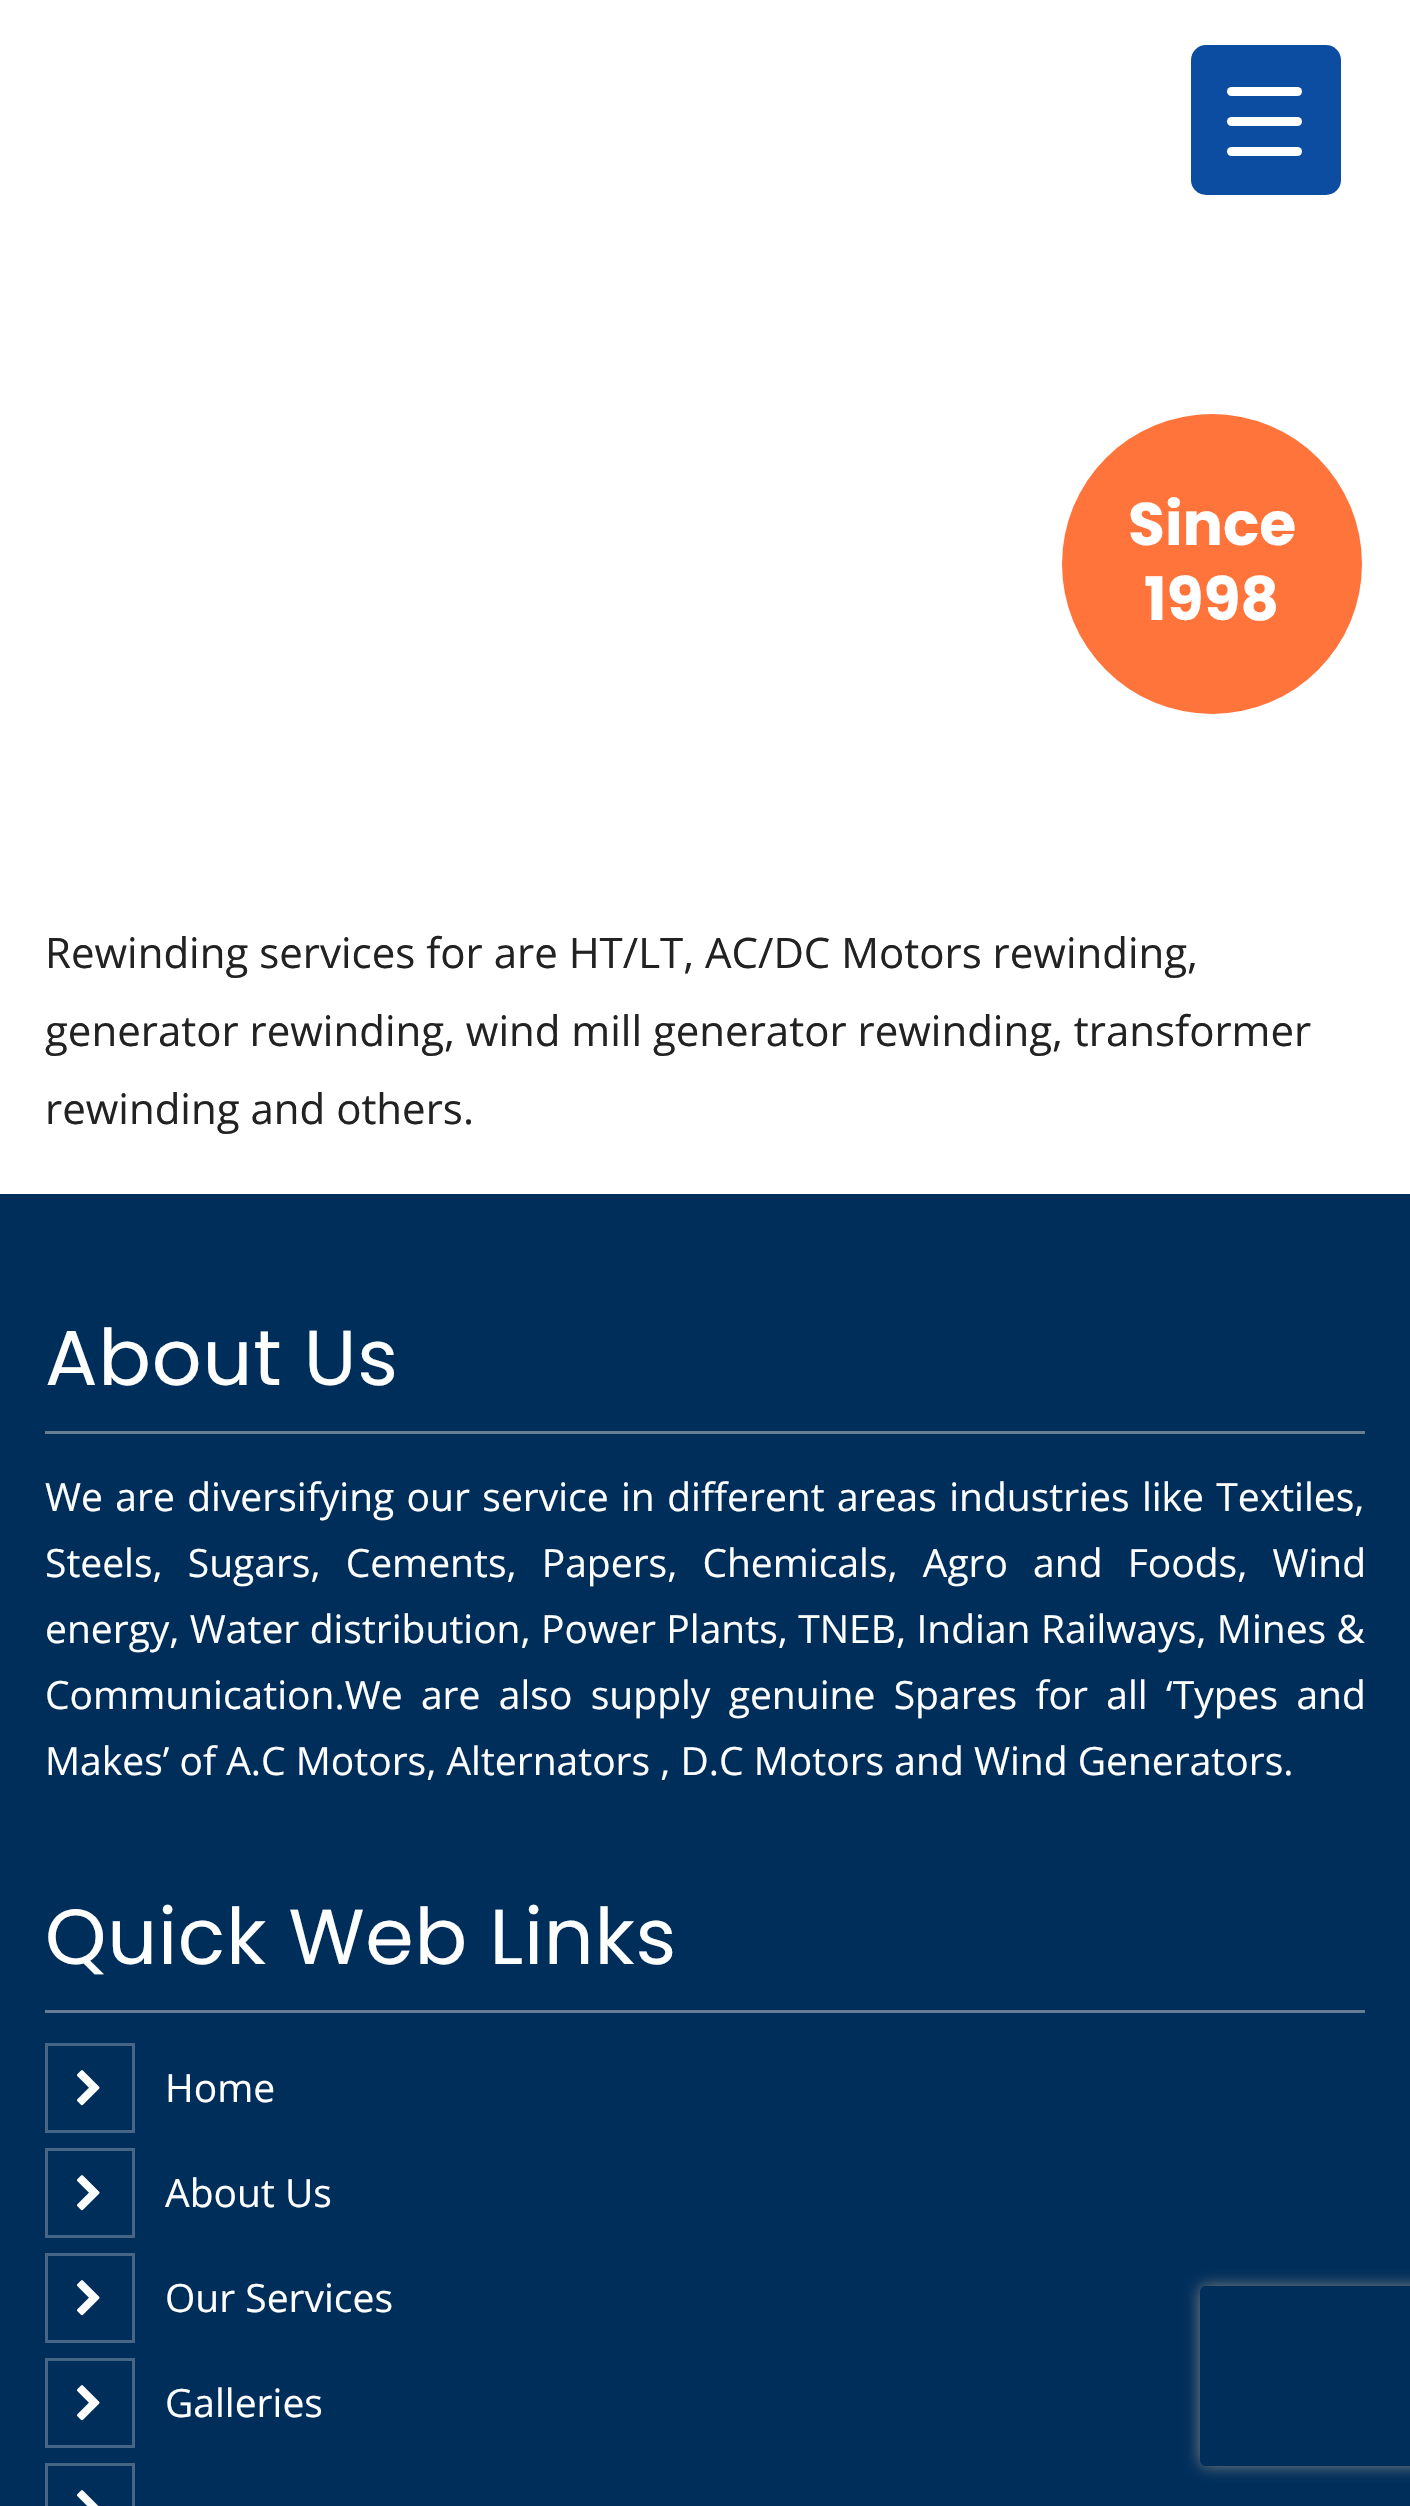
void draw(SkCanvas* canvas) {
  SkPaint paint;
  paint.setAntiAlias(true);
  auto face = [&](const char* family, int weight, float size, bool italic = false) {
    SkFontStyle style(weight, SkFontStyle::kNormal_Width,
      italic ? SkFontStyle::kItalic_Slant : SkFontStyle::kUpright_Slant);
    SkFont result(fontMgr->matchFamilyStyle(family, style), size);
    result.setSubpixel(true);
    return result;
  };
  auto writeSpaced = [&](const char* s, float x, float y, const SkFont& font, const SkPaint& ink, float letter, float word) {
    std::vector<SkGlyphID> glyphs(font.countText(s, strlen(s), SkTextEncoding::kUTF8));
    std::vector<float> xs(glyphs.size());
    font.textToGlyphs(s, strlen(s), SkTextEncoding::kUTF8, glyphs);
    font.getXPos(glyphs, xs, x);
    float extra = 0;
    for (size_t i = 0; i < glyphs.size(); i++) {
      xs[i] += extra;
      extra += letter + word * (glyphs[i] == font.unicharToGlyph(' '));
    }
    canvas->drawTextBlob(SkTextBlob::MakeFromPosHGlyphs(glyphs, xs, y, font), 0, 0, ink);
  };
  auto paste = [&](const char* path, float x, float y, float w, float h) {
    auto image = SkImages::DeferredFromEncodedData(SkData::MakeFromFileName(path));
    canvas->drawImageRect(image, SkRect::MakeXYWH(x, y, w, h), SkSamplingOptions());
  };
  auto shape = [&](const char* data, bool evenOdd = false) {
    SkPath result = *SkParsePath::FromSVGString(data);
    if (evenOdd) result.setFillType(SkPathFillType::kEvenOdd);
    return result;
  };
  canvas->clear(0xffffffff);
  paint.setColor(0xff0c4da2);
  canvas->drawRoundRect(SkRect::MakeXYWH(1191, 45, 150, 150), 15, 15, paint);
  paint.setColor(0xffffffff);
  canvas->drawRoundRect(SkRect::MakeXYWH(1227, 117, 75, 9), 4.5f, 4.5f, paint);
  canvas->drawRoundRect(SkRect::MakeXYWH(1227, 87, 75, 9), 4.5f, 4.5f, paint);
  canvas->drawRoundRect(SkRect::MakeXYWH(1227, 147, 75, 9), 4.5f, 4.5f, paint);
  paint.setColor(0xffff743b);
  canvas->drawCircle(1212, 564, 150, paint);
  {
    const struct { float x, y, w, h; SkColor color; } items[] = {
      {0, 1194, 1410, 1312, 0xff002e5b},
      {45, 1431, 1320, 3, 0xff667d94},
      {45, 2010, 1320, 3, 0xff667d94},
    };
    for (auto [x, y, w, h, color] : items) {
      paint.setColor(color);
      canvas->drawRect(SkRect::MakeXYWH(x, y, w, h), paint);
    }
  }
  paint.setStroke(true);
  paint.setStrokeWidth(3);
  paint.setColor(0xff476685);
  canvas->drawRect(SkRect::MakeXYWH(46.5f, 2044.5f, 87, 87), paint);
  paste("img/1.png", 77, 2070, 23, 36);
  canvas->drawRect(SkRect::MakeXYWH(46.5f, 2149.5f, 87, 87), paint);
  paste("img/1.png", 77, 2175, 23, 36);
  canvas->drawRect(SkRect::MakeXYWH(46.5f, 2254.5f, 87, 87), paint);
  paste("img/1.png", 77, 2280, 23, 36);
  canvas->drawRect(SkRect::MakeXYWH(46.5f, 2359.5f, 87, 87), paint);
  paste("img/1.png", 77, 2385, 23, 36);
  canvas->drawRect(SkRect::MakeXYWH(46.5f, 2464.5f, 87, 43), paint);
  paste("img/2.png", 77, 2490, 22, 16);
  canvas->save();
  canvas->clipPath(shape("M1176 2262H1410V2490H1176ZM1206 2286H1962C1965.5 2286 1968 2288.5 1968 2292V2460C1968 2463.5 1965.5 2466 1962 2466H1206C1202.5 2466 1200 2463.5 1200 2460V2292C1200 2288.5 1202.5 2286 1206 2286Z", true), true);
  paint.setStroke(false);
  paint.setColor(0xff808080);
  paint.setMaskFilter(SkMaskFilter::MakeBlur(kNormal_SkBlurStyle, 7.5f));
  canvas->drawRoundRect(SkRect::MakeXYWH(1200, 2286, 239, 180), 6, 6, paint);
  paint.setMaskFilter(nullptr);
  canvas->restore();
  auto f0 = face("Poppins", 700, 60);
  paint.setColor(0xffffffff);
  canvas->drawString("Since", 1128, 545, f0, paint);
  canvas->drawString("1998", 1144, 620, f0, paint);
  auto f1 = face("Open Sans", 400, 42);
  paint.setColor(0xff222222);
  {
    const struct { const char* s; float x, y; } items[] = {
      {"Rewinding services for are HT/LT, AC/DC Motors rewinding,", 45, 968},
      {"generator rewinding, wind mill generator rewinding, transformer", 45, 1046},
      {"rewinding and others.", 45, 1124},
    };
    for (auto [s, x, y] : items) {
      canvas->drawString(s, x, y, f1, paint);
    }
  }
  auto f2 = face("Poppins", 400, 78);
  paint.setColor(0xffffffff);
  writeSpaced("About Us", 45, 1385, f2, paint, 0.75f, 0);
  auto f3 = face("Open Sans", 400, 39);
  writeSpaced("We are diversifying our service in different areas industries like Textiles,", 45, 1511, f3, paint, 0, 2.25f);
  writeSpaced("Steels, Sugars, Cements, Papers, Chemicals, Agro and Foods, Wind", 45, 1577, f3, paint, 0, 15);
  writeSpaced("energy, Water distribution, Power Plants, TNEB, Indian Railways, Mines &", 45, 1643, f3, paint, 0, 0.25f);
  writeSpaced("Communication.We are also supply genuine Spares for all ‘Types and", 45, 1709, f3, paint, 0, 8.25f);
  canvas->drawString("Makes’ of A.C Motors, Alternators , D.C Motors and Wind Generators.", 45, 1775, f3, paint);
  writeSpaced("Quick Web Links", 45, 1964, f2, paint, 0.75f, 0);
  {
    const struct { const char* s; float x, y; } items[] = {
      {"Home", 165, 2102},
      {"About Us", 165, 2207},
      {"Our Services", 165, 2312},
      {"Galleries", 165, 2417},
    };
    for (auto [s, x, y] : items) {
      canvas->drawString(s, x, y, f3, paint);
    }
  }
}
